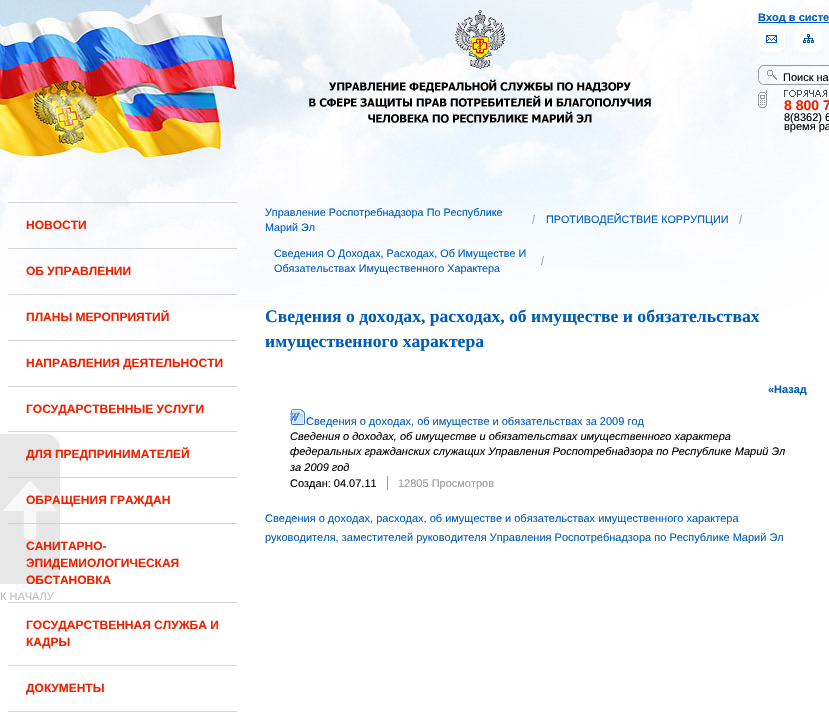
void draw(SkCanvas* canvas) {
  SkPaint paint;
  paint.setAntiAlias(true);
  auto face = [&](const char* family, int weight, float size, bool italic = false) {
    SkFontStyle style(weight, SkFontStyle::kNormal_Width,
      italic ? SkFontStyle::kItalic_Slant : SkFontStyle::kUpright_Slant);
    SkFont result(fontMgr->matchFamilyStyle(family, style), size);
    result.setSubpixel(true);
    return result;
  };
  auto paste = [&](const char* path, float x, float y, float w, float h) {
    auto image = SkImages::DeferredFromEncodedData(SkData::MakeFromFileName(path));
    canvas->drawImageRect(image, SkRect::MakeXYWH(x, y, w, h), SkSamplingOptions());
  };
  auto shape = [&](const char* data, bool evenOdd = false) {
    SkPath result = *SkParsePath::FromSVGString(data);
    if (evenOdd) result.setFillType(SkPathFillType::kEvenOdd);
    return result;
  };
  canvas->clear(0xffffffff);
  paste("img/1.png", 0, 0, 829, 312);
  paste("img/2.png", 309, 10, 342, 113);
  paint.setColor(0xff005db7);
  canvas->drawRect(SkRect::MakeXYWH(758, 22, 71, 1), paint);
  paste("img/3.png", 758, 25, 27, 27);
  paste("img/4.png", 795, 25, 27, 27);
  paste("img/5.png", 758, 65, 71, 20);
  paste("img/6.png", 758, 90, 9, 18);
  paste("img/7.png", 784, 90, 43, 7);
  {
    const struct { float x, y, w, h; SkColor color; } items[] = {
      {8, 202, 229, 1, 0xffd4d4d4},
      {8, 248, 229, 1, 0xffd4d4d4},
      {8, 294, 229, 1, 0xffd4d4d4},
      {8, 340, 229, 1, 0xffd4d4d4},
      {8, 386, 229, 1, 0xffd4d4d4},
      {8, 431, 229, 1, 0xffd4d4d4},
    };
    for (auto [x, y, w, h, color] : items) {
      paint.setColor(color);
      canvas->drawRect(SkRect::MakeXYWH(x, y, w, h), paint);
    }
  }
  paint.setColor(0xffe7e7e7);
  canvas->drawPath(shape("M0 434H45C53.5 434 60 440.5 60 449V569C60 577.5 53.5 584 45 584H0Z"), paint);
  paint.setColor(0xffd4d4d4);
  canvas->drawRect(SkRect::MakeXYWH(8, 477, 229, 1), paint);
  paste("img/12.png", 3, 480, 54, 59);
  {
    const struct { float x, y, w, h; SkColor color; } items[] = {
      {8, 523, 229, 1, 0xffd4d4d4},
      {8, 602, 229, 1, 0xffd4d4d4},
      {8, 665, 229, 1, 0xffd4d4d4},
      {8, 711, 229, 1, 0xffd4d4d4},
    };
    for (auto [x, y, w, h, color] : items) {
      paint.setColor(color);
      canvas->drawRect(SkRect::MakeXYWH(x, y, w, h), paint);
    }
  }
  paste("img/8.png", 532, 215, 3, 9);
  paste("img/9.png", 739, 215, 3, 9);
  paste("img/10.png", 541, 256, 3, 9);
  paste("img/11.png", 290, 409, 15, 16);
  paint.setColor(0xff999999);
  canvas->drawRect(SkRect::MakeXYWH(387, 476, 1, 14), paint);
  auto f0 = face("Liberation Sans", 700, 11);
  paint.setColor(0xff005db7);
  canvas->drawString("Вход в систе", 758, 21, f0, paint);
  auto f1 = face("Liberation Sans", 400, 11);
  paint.setColor(0xff000000);
  canvas->drawString("Поиск на", 783, 81, f1, paint);
  auto f2 = face("Liberation Sans", 700, 14);
  paint.setColor(0xffee2200);
  canvas->drawString("8 800 7", 784, 110, f2, paint);
  paint.setColor(0xff000000);
  canvas->drawString("8(8362) 6", 784, 121, f1, paint);
  canvas->drawString("время ра", 784, 130, f1, paint);
  auto f3 = face("Liberation Sans", 700, 12);
  paint.setColor(0xffee2200);
  {
    const struct { const char* s; float x, y; } items[] = {
      {"НОВОСТИ", 26, 229},
      {"ОБ УПРАВЛЕНИИ", 26, 275},
      {"ПЛАНЫ МЕРОПРИЯТИЙ", 26, 321},
      {"НАПРАВЛЕНИЯ ДЕЯТЕЛЬНОСТИ", 26, 367},
      {"ГОСУДАРСТВЕННЫЕ УСЛУГИ", 26, 413},
      {"ДЛЯ ПРЕДПРИНИМАТЕЛЕЙ", 26, 458},
      {"ОБРАЩЕНИЯ ГРАЖДАН", 26, 504},
      {"САНИТАРНО-", 26, 550},
      {"ЭПИДЕМИОЛОГИЧЕСКАЯ", 26, 567},
      {"ОБСТАНОВКА", 26, 584},
      {"ГОСУДАРСТВЕННАЯ СЛУЖБА И", 26, 629},
      {"КАДРЫ", 26, 646},
      {"ДОКУМЕНТЫ", 26, 692},
    };
    for (auto [s, x, y] : items) {
      canvas->drawString(s, x, y, f3, paint);
    }
  }
  auto f4 = face("Liberation Sans", 400, 10.8f);
  paint.setColor(0xff005db7);
  {
    const struct { const char* s; float x, y; } items[] = {
      {"Управление Роспотребнадзора По Республике", 265, 216},
      {"Марий Эл", 265, 231},
      {"ПРОТИВОДЕЙСТВИЕ КОРРУПЦИИ", 546, 223},
      {"Сведения О Доходах, Расходах, Об Имуществе И", 274, 257},
      {"Обязательствах Имущественного Характера", 274, 272},
    };
    for (auto [s, x, y] : items) {
      canvas->drawString(s, x, y, f4, paint);
    }
  }
  auto f5 = face("Liberation Serif", 700, 17.6f);
  canvas->drawString("Сведения о доходах, расходах, об имуществе и обязательствах", 265, 322, f5, paint);
  canvas->drawString("имущественного характера", 265, 347, f5, paint);
  canvas->drawString("«Назад", 768, 393, f0, paint);
  canvas->drawString("Сведения о доходах, об имуществе и обязательствах за 2009 год", 306, 425, f1, paint);
  auto f6 = face("Liberation Sans", 400, 11, true);
  paint.setColor(0xff000000);
  {
    const struct { const char* s; float x, y; } items[] = {
      {"Сведения о доходах, об имуществе и обязательствах имущественного характера", 290, 440},
      {"федеральных гражданских служащих Управления Роспотребнадзора по Республике Марий Эл", 290, 455},
      {"за 2009 год", 290, 471},
    };
    for (auto [s, x, y] : items) {
      canvas->drawString(s, x, y, f6, paint);
    }
  }
  canvas->drawString("Создан: 04.07.11", 290, 487, f1, paint);
  paint.setColor(0xff999999);
  canvas->drawString("12805 Просмотров", 398, 487, f1, paint);
  paint.setColor(0xff005db7);
  canvas->drawString("Сведения о доходах, расходах, об имуществе и обязательствах имущественного характера", 265, 522, f1, paint);
  canvas->drawString("руководителя, заместителей руководителя Управления Роспотребнадзора по Республике Марий Эл", 265, 541, f1, paint);
  paint.setColor(0xffbbbbbb);
  canvas->drawString("К НАЧАЛУ", 0, 600, f1, paint);
}
